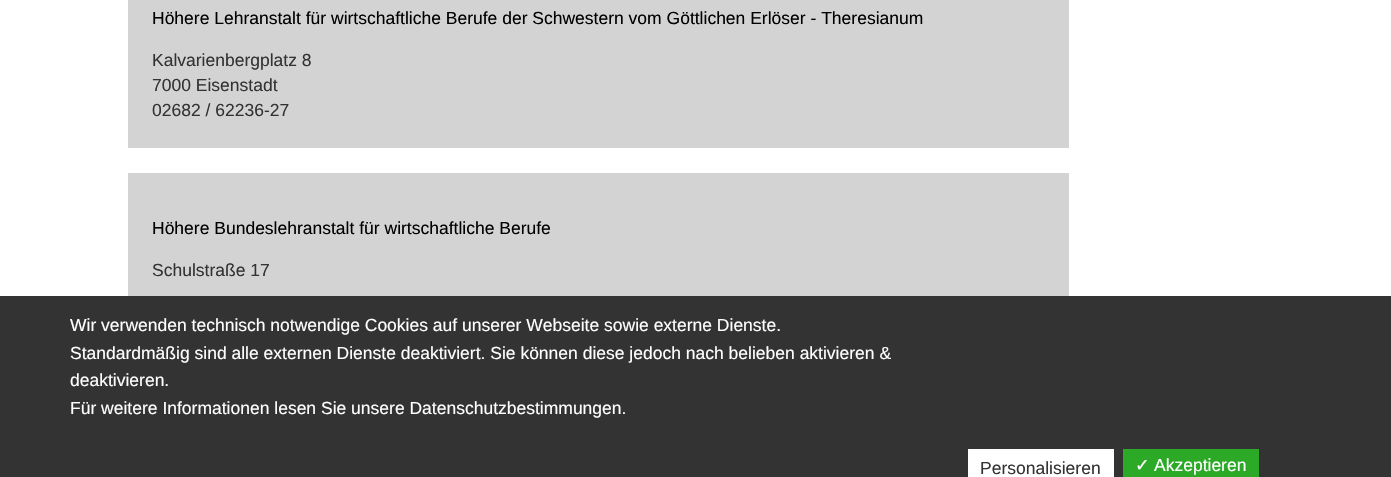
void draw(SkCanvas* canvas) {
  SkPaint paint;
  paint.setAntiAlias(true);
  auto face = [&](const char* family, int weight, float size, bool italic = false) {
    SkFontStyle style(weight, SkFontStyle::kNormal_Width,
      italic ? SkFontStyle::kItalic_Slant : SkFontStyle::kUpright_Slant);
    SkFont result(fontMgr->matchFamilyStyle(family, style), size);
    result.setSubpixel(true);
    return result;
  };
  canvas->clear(0xffffffff);
  {
    const struct { float x, y, w, h; SkColor color; } items[] = {
      {128, 0, 941, 148, 0xffd3d3d3},
      {128, 173, 941, 123, 0xffd3d3d3},
      {0, 296, 1391, 181, 0xff333333},
      {968, 449, 146, 28, 0xffffffff},
      {1123, 449, 136, 28, 0xff2caa27},
    };
    for (auto [x, y, w, h, color] : items) {
      paint.setColor(color);
      canvas->drawRect(SkRect::MakeXYWH(x, y, w, h), paint);
    }
  }
  auto f0 = face("Liberation Sans", 400, 17.5f);
  paint.setColor(0xff000000);
  canvas->drawString("Höhere Lehranstalt für wirtschaftliche Berufe der Schwestern vom Göttlichen Erlöser - Theresianum", 152, 24, f0, paint);
  paint.setColor(0xff333333);
  {
    const struct { const char* s; float x, y; } items[] = {
      {"Kalvarienbergplatz 8", 152, 66},
      {"7000 Eisenstadt", 152, 91},
      {"02682 / 62236-27", 152, 116},
    };
    for (auto [s, x, y] : items) {
      canvas->drawString(s, x, y, f0, paint);
    }
  }
  paint.setColor(0xff000000);
  canvas->drawString("Höhere Bundeslehranstalt für wirtschaftliche Berufe", 152, 234, f0, paint);
  paint.setColor(0xff333333);
  canvas->drawString("Schulstraße 17", 152, 276, f0, paint);
  paint.setColor(0xffffffff);
  {
    const struct { const char* s; float x, y; } items[] = {
      {"Wir verwenden technisch notwendige Cookies auf unserer Webseite sowie externe Dienste.", 70, 331},
      {"Standardmäßig sind alle externen Dienste deaktiviert. Sie können diese jedoch nach belieben aktivieren &", 70, 359},
      {"deaktivieren.", 70, 386},
      {"Für weitere Informationen lesen Sie unsere Datenschutzbestimmungen.", 70, 414},
    };
    for (auto [s, x, y] : items) {
      canvas->drawString(s, x, y, f0, paint);
    }
  }
  paint.setColor(0xff333333);
  canvas->drawString("Personalisieren", 980, 474, f0, paint);
  auto f1 = face("DejaVu Sans", 400, 17.5f);
  paint.setColor(0xffffffff);
  canvas->drawString("✓", 1135, 471, f1, paint);
  canvas->drawString("Akzeptieren", 1154, 471, f0, paint);
}
